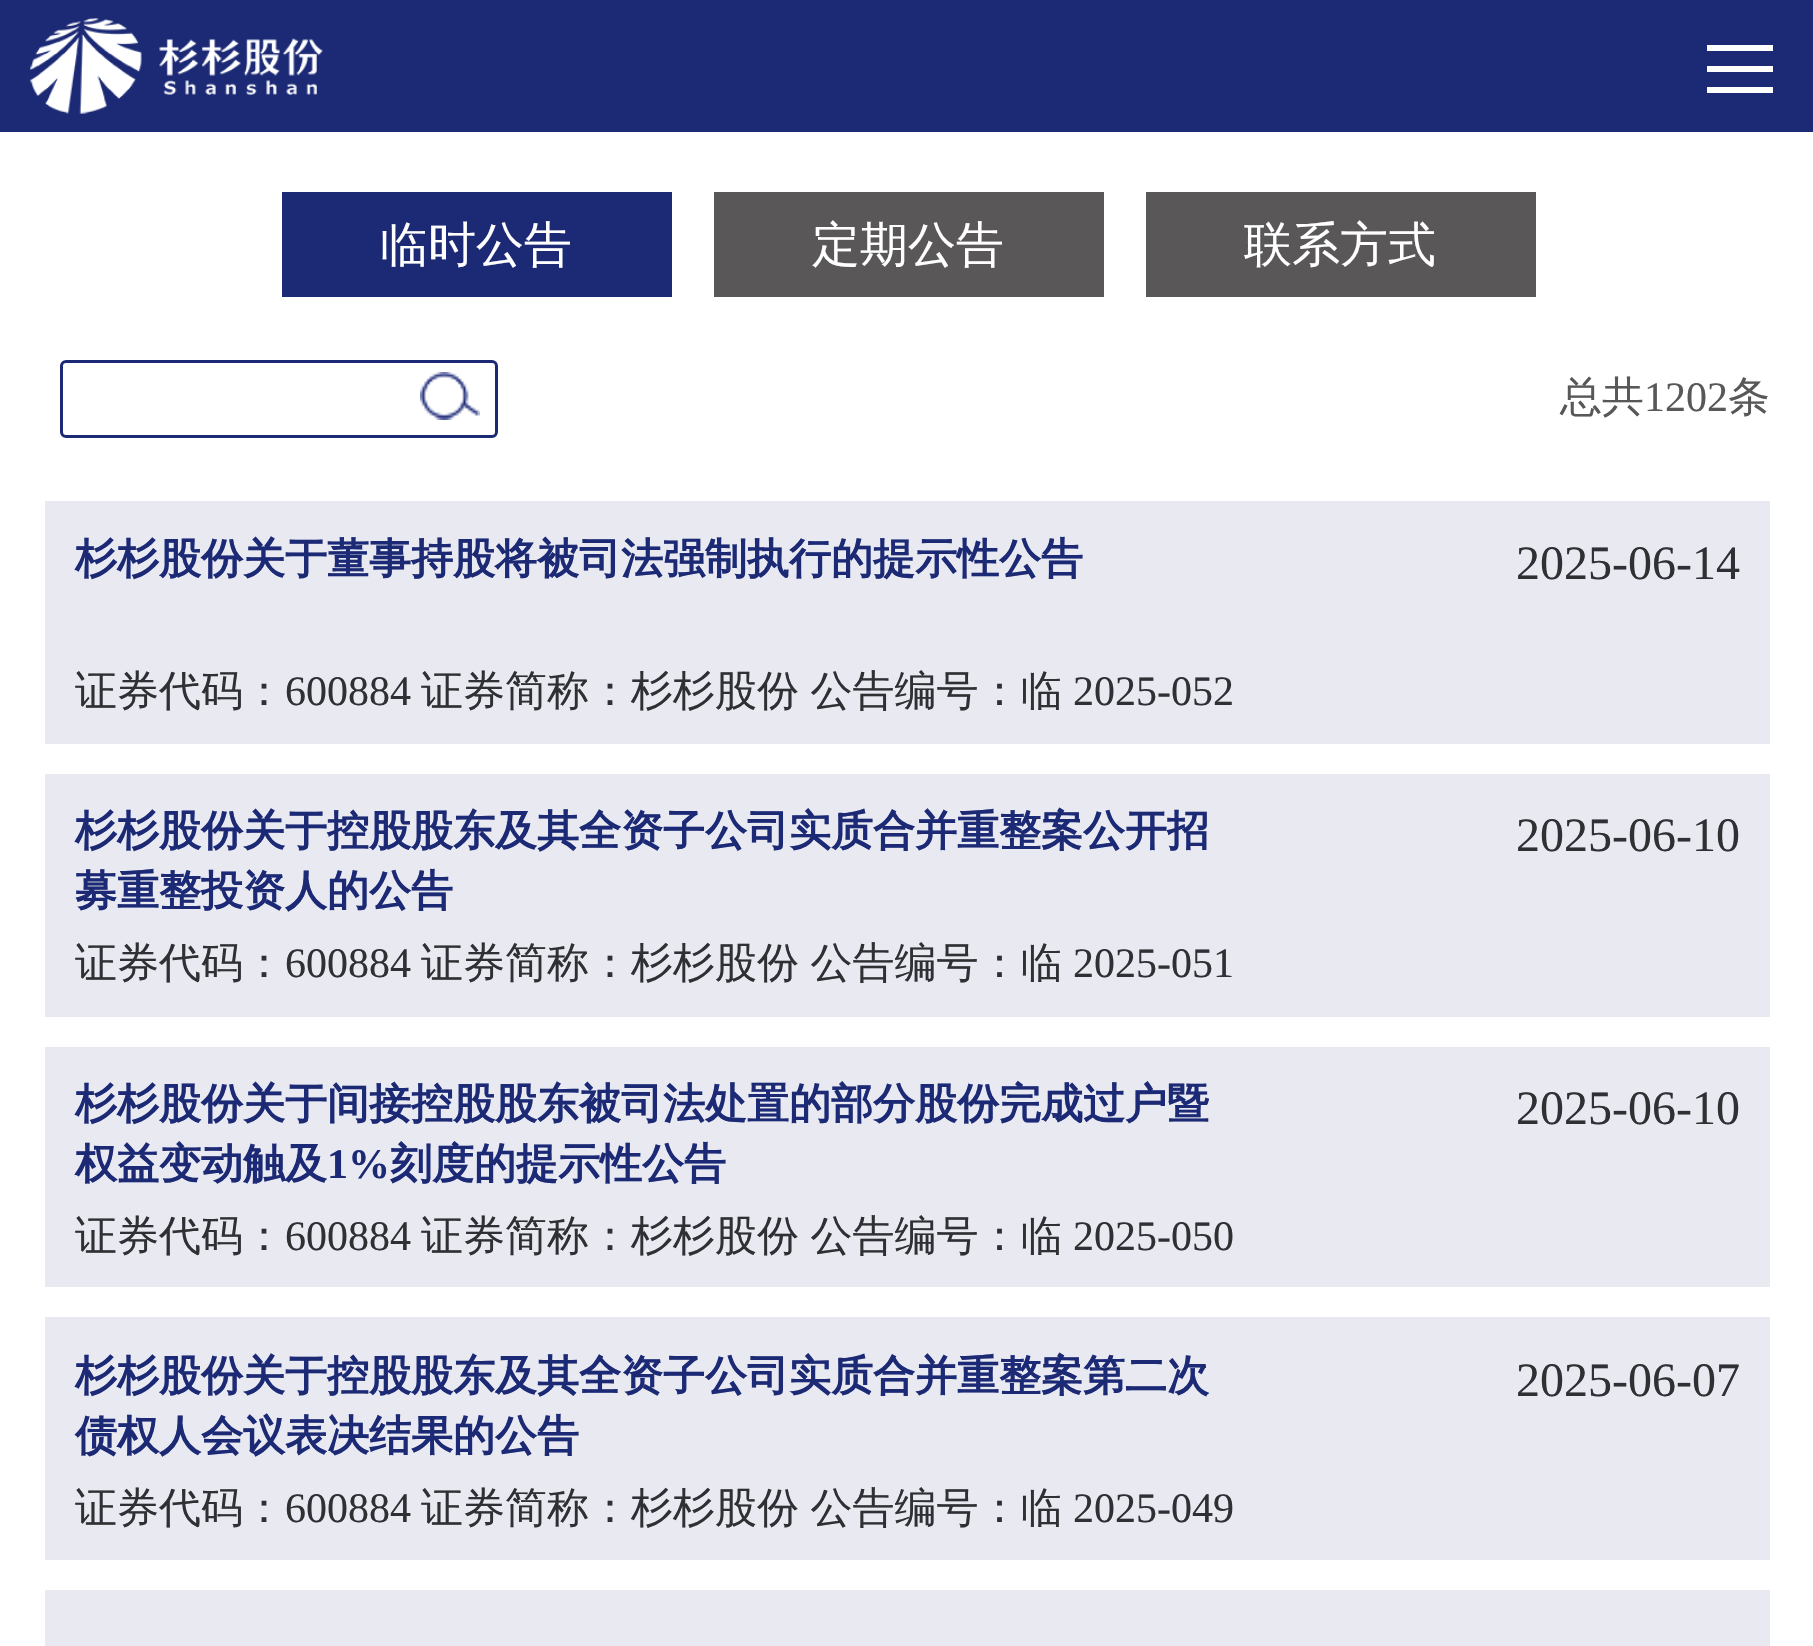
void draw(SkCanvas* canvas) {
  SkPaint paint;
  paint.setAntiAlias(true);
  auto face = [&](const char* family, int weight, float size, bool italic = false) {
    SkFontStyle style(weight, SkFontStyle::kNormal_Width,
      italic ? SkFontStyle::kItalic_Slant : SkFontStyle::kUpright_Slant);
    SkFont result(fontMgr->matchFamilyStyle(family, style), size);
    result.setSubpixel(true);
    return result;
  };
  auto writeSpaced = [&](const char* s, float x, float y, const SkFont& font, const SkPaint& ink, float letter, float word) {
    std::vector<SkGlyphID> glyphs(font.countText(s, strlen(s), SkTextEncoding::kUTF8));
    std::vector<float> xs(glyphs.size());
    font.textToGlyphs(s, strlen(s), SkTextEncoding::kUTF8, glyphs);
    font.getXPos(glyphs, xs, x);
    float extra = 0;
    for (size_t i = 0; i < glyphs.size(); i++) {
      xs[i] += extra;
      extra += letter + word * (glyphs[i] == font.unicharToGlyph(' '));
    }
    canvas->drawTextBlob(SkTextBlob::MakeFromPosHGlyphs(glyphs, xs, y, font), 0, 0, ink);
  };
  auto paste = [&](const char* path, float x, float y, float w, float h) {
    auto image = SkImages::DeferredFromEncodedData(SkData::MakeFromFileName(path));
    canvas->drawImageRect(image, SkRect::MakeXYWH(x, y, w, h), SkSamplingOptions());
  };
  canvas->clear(0xffffffff);
  paint.setColor(0xff1c2a76);
  canvas->drawRect(SkRect::MakeXYWH(0, 0, 1813, 132), paint);
  paste("img/1.png", 30, 18, 293, 96);
  {
    const struct { float x, y, w, h; SkColor color; } items[] = {
      {1707, 45, 66, 6, 0xffffffff},
      {1707, 66, 66, 6, 0xffffffff},
      {1707, 87, 66, 6, 0xffffffff},
      {282, 192, 390, 105, 0xff1c2a76},
      {714, 192, 390, 105, 0xff595757},
      {1146, 192, 390, 105, 0xff595757},
    };
    for (auto [x, y, w, h, color] : items) {
      paint.setColor(color);
      canvas->drawRect(SkRect::MakeXYWH(x, y, w, h), paint);
    }
  }
  paint.setStroke(true);
  paint.setStrokeWidth(3);
  paint.setColor(0xff1c2a76);
  canvas->drawRoundRect(SkRect::MakeXYWH(61.5f, 361.5f, 435, 75), 4.5f, 4.5f, paint);
  paste("img/2.png", 420, 372, 60, 48);
  paint.setStroke(false);
  {
    const struct { float x, y, w, h; SkColor color; } items[] = {
      {45, 501, 1725, 243, 0xffe8e9f1},
      {45, 774, 1725, 243, 0xffe8e9f1},
      {45, 1047, 1725, 240, 0xffe8e9f1},
      {45, 1317, 1725, 243, 0xffe8e9f1},
      {45, 1590, 1725, 56, 0xffe8e9f1},
    };
    for (auto [x, y, w, h, color] : items) {
      paint.setColor(color);
      canvas->drawRect(SkRect::MakeXYWH(x, y, w, h), paint);
    }
  }
  auto f0 = face("WenQuanYi Zen Hei", 500, 48);
  paint.setColor(0xffffffff);
  {
    const struct { const char* s; float x, y; } items[] = {
      {"临时公告", 380, 261},
      {"定期公告", 812, 261},
      {"联系方式", 1244, 261},
    };
    for (auto [s, x, y] : items) {
      canvas->drawString(s, x, y, f0, paint);
    }
  }
  auto f1 = face("WenQuanYi Zen Hei", 500, 42);
  paint.setColor(0xff595757);
  canvas->drawString("总共", 1560, 411, f1, paint);
  auto f2 = face("Liberation Serif", 400, 42);
  canvas->drawString("1202", 1644, 411, f2, paint);
  canvas->drawString("条", 1728, 411, f1, paint);
  auto f3 = face("WenQuanYi Zen Hei", 700, 42);
  paint.setColor(0xff1c2a76);
  canvas->drawString("杉杉股份关于董事持股将被司法强制执行的提示性公告", 75, 573, f3, paint);
  auto f4 = face("Liberation Serif", 400, 48);
  paint.setColor(0xff2e3033);
  canvas->drawString("2025-06-14", 1516, 579, f4, paint);
  canvas->drawString("证券代码：", 75, 705, f1, paint);
  canvas->drawString("600884", 285, 705, f2, paint);
  writeSpaced("证券简称：杉杉股份 公告编号：临", 421, 705, f1, paint, 0, -1);
  canvas->drawString("2025-052", 1073, 705, f2, paint);
  paint.setColor(0xff1c2a76);
  canvas->drawString("杉杉股份关于控股股东及其全资子公司实质合并重整案公开招", 75, 845, f3, paint);
  canvas->drawString("募重整投资人的公告", 75, 905, f3, paint);
  paint.setColor(0xff2e3033);
  canvas->drawString("2025-06-10", 1516, 851, f4, paint);
  canvas->drawString("证券代码：", 75, 977, f1, paint);
  canvas->drawString("600884", 285, 977, f2, paint);
  writeSpaced("证券简称：杉杉股份 公告编号：临", 421, 977, f1, paint, 0, -1);
  canvas->drawString("2025-051", 1073, 977, f2, paint);
  paint.setColor(0xff1c2a76);
  canvas->drawString("杉杉股份关于间接控股股东被司法处置的部分股份完成过户暨", 75, 1118, f3, paint);
  canvas->drawString("权益变动触及", 75, 1178, f3, paint);
  auto f5 = face("Liberation Serif", 700, 42);
  canvas->drawString("1%", 327, 1178, f5, paint);
  canvas->drawString("刻度的提示性公告", 390, 1178, f3, paint);
  paint.setColor(0xff2e3033);
  canvas->drawString("2025-06-10", 1516, 1124, f4, paint);
  canvas->drawString("证券代码：", 75, 1250, f1, paint);
  canvas->drawString("600884", 285, 1250, f2, paint);
  writeSpaced("证券简称：杉杉股份 公告编号：临", 421, 1250, f1, paint, 0, -1);
  canvas->drawString("2025-050", 1073, 1250, f2, paint);
  paint.setColor(0xff1c2a76);
  canvas->drawString("杉杉股份关于控股股东及其全资子公司实质合并重整案第二次", 75, 1390, f3, paint);
  canvas->drawString("债权人会议表决结果的公告", 75, 1450, f3, paint);
  paint.setColor(0xff2e3033);
  canvas->drawString("2025-06-07", 1516, 1396, f4, paint);
  canvas->drawString("证券代码：", 75, 1522, f1, paint);
  canvas->drawString("600884", 285, 1522, f2, paint);
  writeSpaced("证券简称：杉杉股份 公告编号：临", 421, 1522, f1, paint, 0, -1);
  canvas->drawString("2025-049", 1073, 1522, f2, paint);
}
